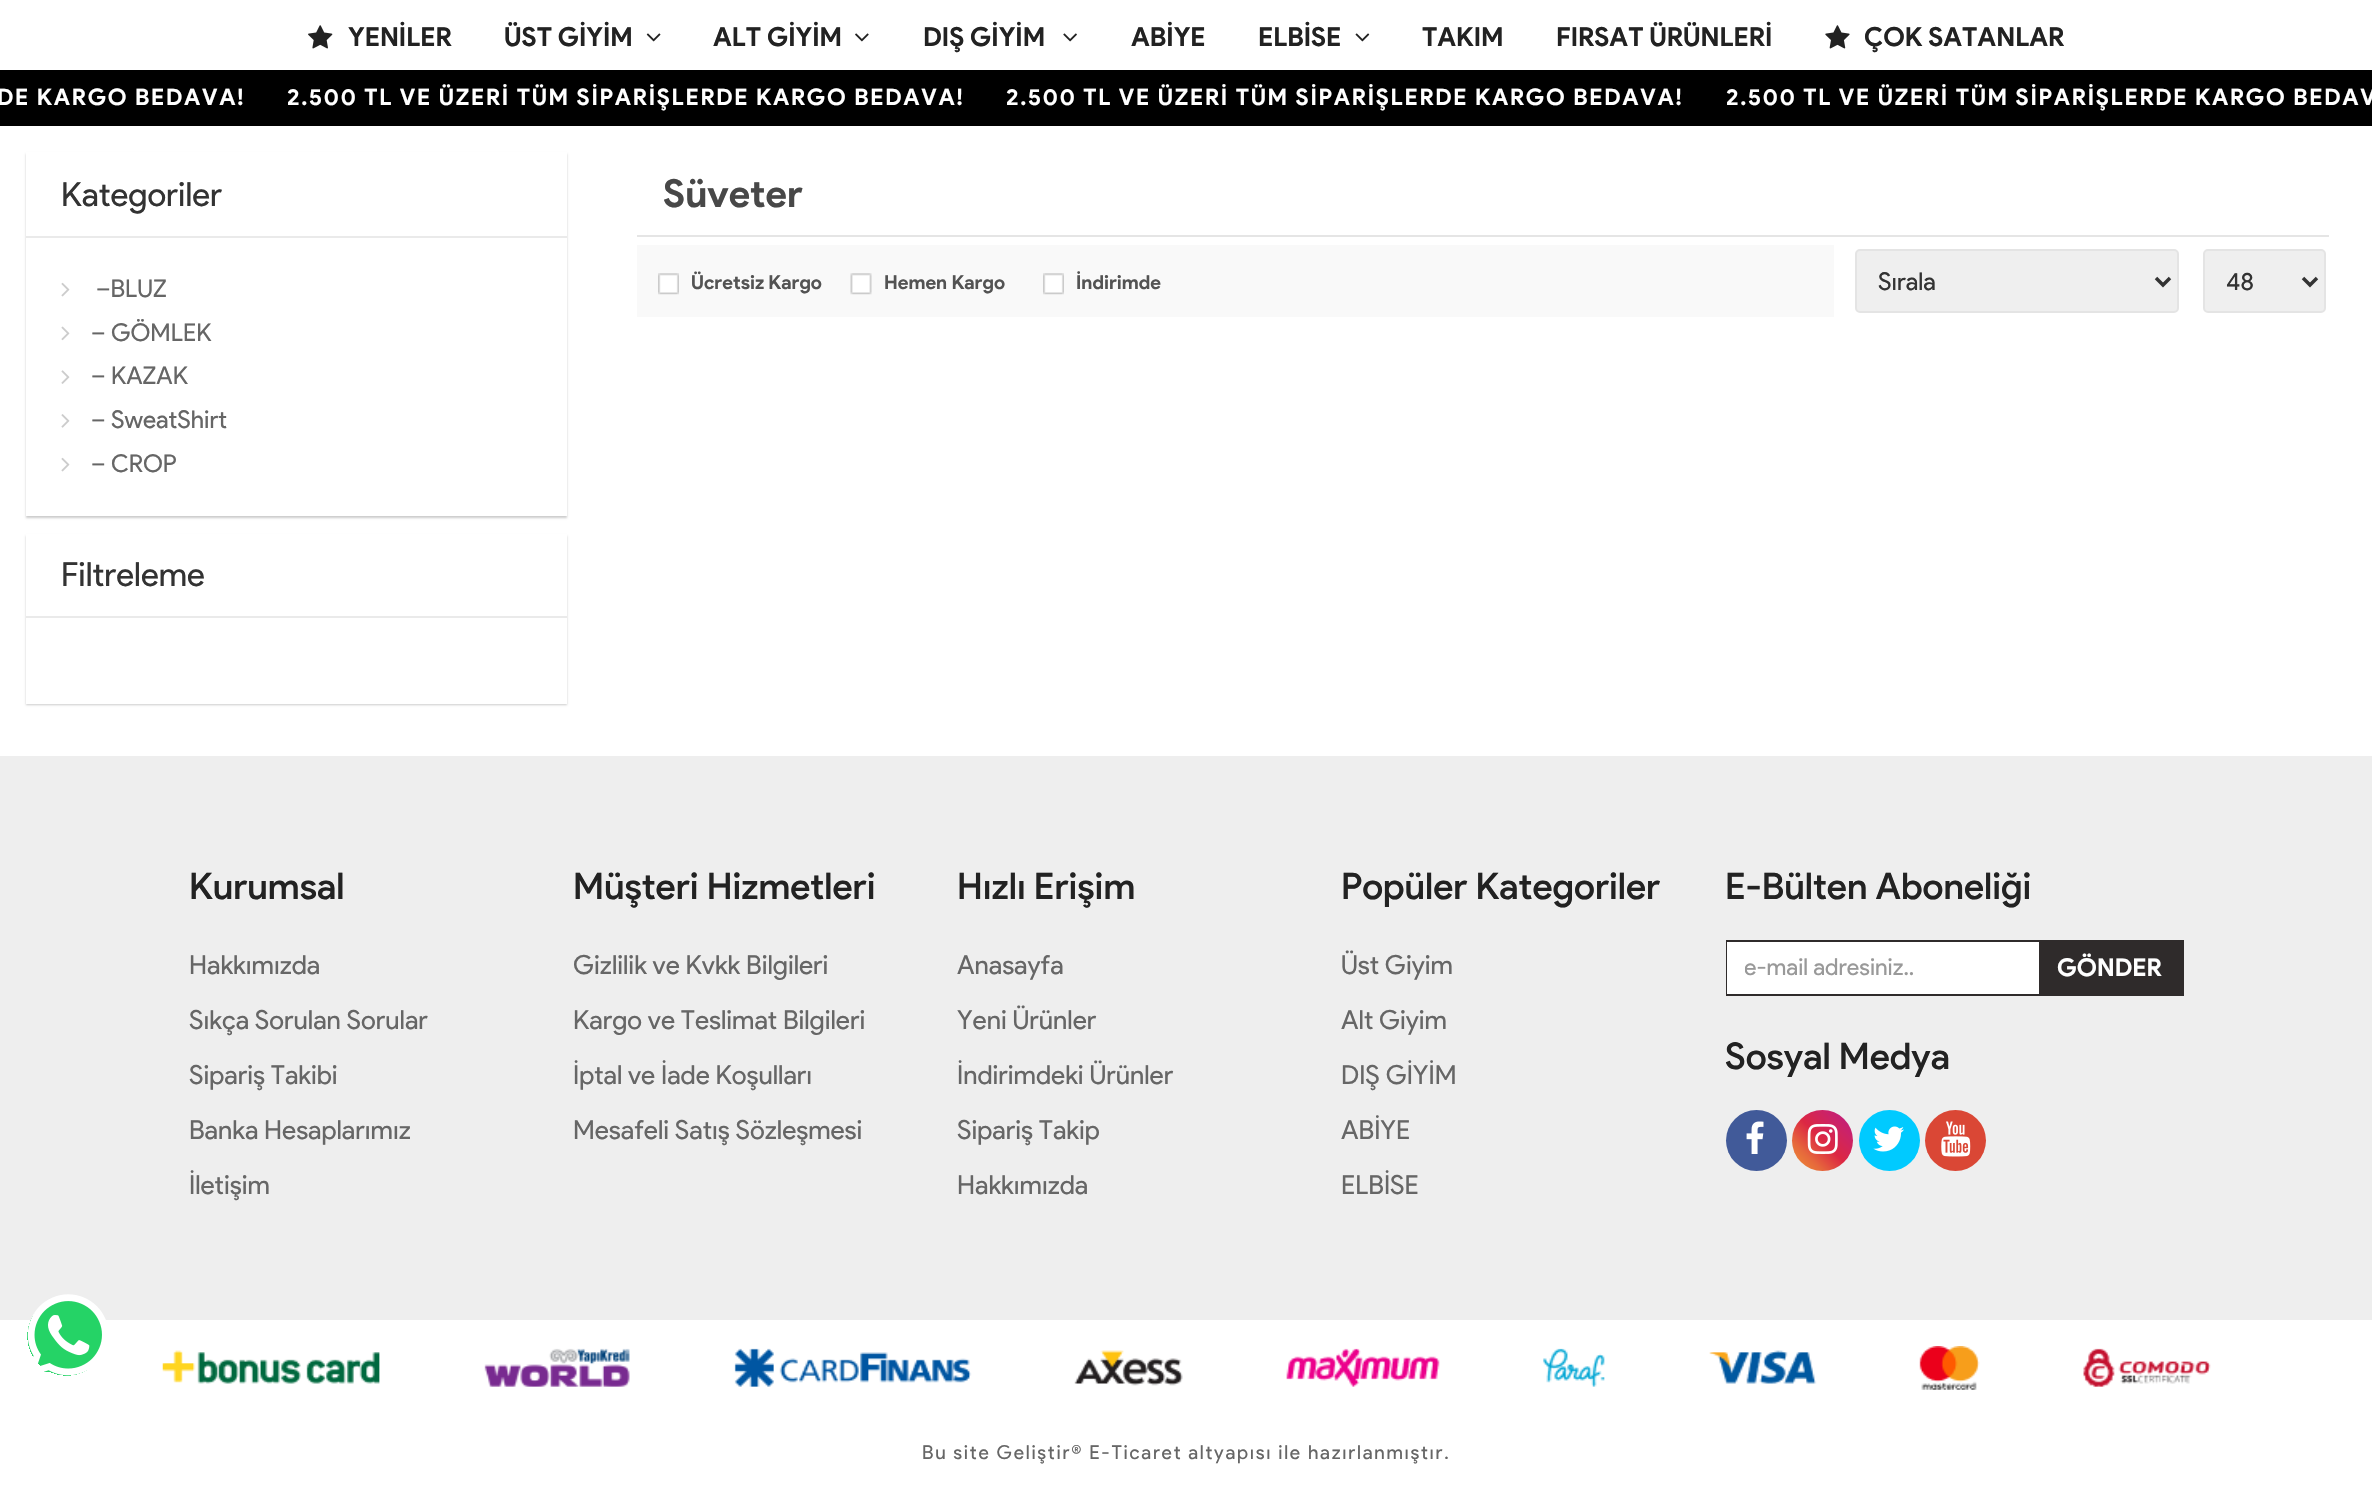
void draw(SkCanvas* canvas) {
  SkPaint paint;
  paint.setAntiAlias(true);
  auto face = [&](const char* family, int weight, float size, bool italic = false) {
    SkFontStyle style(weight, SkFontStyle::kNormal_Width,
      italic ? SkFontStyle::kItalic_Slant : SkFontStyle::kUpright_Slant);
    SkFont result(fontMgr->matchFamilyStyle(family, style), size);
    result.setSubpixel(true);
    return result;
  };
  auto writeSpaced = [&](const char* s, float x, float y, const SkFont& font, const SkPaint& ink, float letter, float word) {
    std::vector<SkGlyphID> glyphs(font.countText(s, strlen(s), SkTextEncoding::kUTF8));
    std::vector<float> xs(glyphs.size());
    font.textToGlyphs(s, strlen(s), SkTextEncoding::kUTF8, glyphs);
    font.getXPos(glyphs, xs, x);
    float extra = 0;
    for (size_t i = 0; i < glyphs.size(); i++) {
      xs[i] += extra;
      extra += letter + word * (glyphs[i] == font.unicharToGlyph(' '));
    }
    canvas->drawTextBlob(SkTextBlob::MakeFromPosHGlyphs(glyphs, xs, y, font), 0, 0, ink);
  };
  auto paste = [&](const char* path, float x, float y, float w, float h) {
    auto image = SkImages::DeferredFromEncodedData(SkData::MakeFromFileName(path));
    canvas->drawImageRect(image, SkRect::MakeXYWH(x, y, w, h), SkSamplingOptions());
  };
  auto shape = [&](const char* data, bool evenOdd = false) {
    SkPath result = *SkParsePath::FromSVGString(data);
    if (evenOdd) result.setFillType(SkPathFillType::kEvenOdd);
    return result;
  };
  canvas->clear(0xffffffff);
  paste("img/1.png", 308, 25, 25, 24);
  paste("img/2.png", 646, 33, 15, 9);
  paste("img/3.png", 855, 33, 14, 9);
  paste("img/4.png", 1063, 33, 14, 9);
  paste("img/5.png", 1355, 33, 15, 9);
  paste("img/6.png", 1825, 25, 25, 24);
  paint.setColor(0xff000000);
  canvas->drawRect(SkRect::MakeXYWH(0, 70, 2372, 56), paint);
  paint.setColor(0x33000000);
  paint.setMaskFilter(SkMaskFilter::MakeBlur(kNormal_SkBlurStyle, 1));
  canvas->drawRect(SkRect::MakeXYWH(26, 154, 541, 364), paint);
  paint.setMaskFilter(nullptr);
  paint.setColor(0xffffffff);
  canvas->drawRect(SkRect::MakeXYWH(26, 152, 541, 364), paint);
  paint.setColor(0xffeaeaea);
  canvas->drawRect(SkRect::MakeXYWH(26, 236, 541, 2), paint);
  paste("img/7.png", 61, 282, 9, 15);
  paste("img/8.png", 61, 326, 9, 15);
  paste("img/9.png", 61, 370, 9, 14);
  paste("img/10.png", 61, 414, 9, 14);
  paste("img/7.png", 61, 457, 9, 15);
  paint.setColor(0x33000000);
  paint.setMaskFilter(SkMaskFilter::MakeBlur(kNormal_SkBlurStyle, 1));
  canvas->drawRect(SkRect::MakeXYWH(26, 536, 541, 169), paint);
  paint.setMaskFilter(nullptr);
  {
    const struct { float x, y, w, h; SkColor color; } items[] = {
      {26, 534, 541, 170, 0xffffffff},
      {26, 616, 541, 2, 0xffeaeaea},
      {637, 235, 1692, 2, 0xffe5e5e5},
      {637, 245, 1197, 72, 0xfff9f9f9},
    };
    for (auto [x, y, w, h, color] : items) {
      paint.setColor(color);
      canvas->drawRect(SkRect::MakeXYWH(x, y, w, h), paint);
    }
  }
  paste("img/11.png", 658, 273, 21, 22);
  paste("img/12.png", 850, 273, 22, 22);
  paste("img/11.png", 1043, 273, 21, 22);
  paint.setColor(0xffefefef);
  canvas->drawRoundRect(SkRect::MakeXYWH(1856, 250, 322, 62), 4, 4, paint);
  paint.setStroke(true);
  paint.setStrokeWidth(2);
  paint.setColor(0xffe4e4e4);
  canvas->drawRoundRect(SkRect::MakeXYWH(1856, 250, 322, 62), 4, 4, paint);
  paint.setStrokeWidth(3.5f);
  paint.setColor(0xff333333);
  canvas->drawPath(shape("M2156 278L2163 285L2170 278"), paint);
  paint.setStroke(false);
  paint.setColor(0xffefefef);
  canvas->drawRoundRect(SkRect::MakeXYWH(2204, 250, 121, 62), 4, 4, paint);
  paint.setStroke(true);
  paint.setStrokeWidth(2);
  paint.setColor(0xffe4e4e4);
  canvas->drawRoundRect(SkRect::MakeXYWH(2204, 250, 121, 62), 4, 4, paint);
  paint.setStrokeWidth(3.5f);
  paint.setColor(0xff333333);
  canvas->drawPath(shape("M2303 278L2310 285L2317 278"), paint);
  paint.setStroke(false);
  paint.setColor(0xffeeeeee);
  canvas->drawRect(SkRect::MakeXYWH(0, 756, 2372, 564), paint);
  {
    const SkColor colors[] = {0xff25d366, 0x0025d366};
    const float stops[] = {0.63f, 0.63f};
    paint.setShader(SkGradientShader::MakeRadial({67, 1336}, 63, colors, stops, 2, SkTileMode::kClamp));
    paint.setAlpha(255);
  }
  canvas->drawRect(SkRect::MakeXYWH(27, 1301, 75, 75), paint);
  paint.setShader(nullptr);
  paint.setColor(0xff25d366);
  canvas->drawRect(SkRect::MakeXYWH(44, 1369, 5, 3), paint);
  paste("img/13.png", 27, 1294, 80, 82);
  paint.setStroke(true);
  paint.setStrokeWidth(2);
  paint.setColor(0xff2f2b2b);
  canvas->drawRect(SkRect::MakeXYWH(1727, 941, 456, 54), paint);
  paint.setStroke(false);
  paint.setColor(0xffffffff);
  canvas->drawRect(SkRect::MakeXYWH(1727, 942, 312, 52), paint);
  paint.setColor(0xff2f2b2b);
  canvas->drawRect(SkRect::MakeXYWH(2039, 942, 143, 52), paint);
  paint.setColor(0xff415a99);
  canvas->drawCircle(1756.5f, 1140.5f, 30.5f, paint);
  paste("img/14.png", 1746, 1121, 18, 33);
  {
    const SkColor colors[] = {0xfff09433, 0xffe6683c, 0xffdc2743, 0xffcc2366, 0xffbc1888};
    const float stops[] = {0, 0.25f, 0.5f, 0.75f, 1};
    const SkPoint ends[] = {{1792, 1171}, {1853, 1110}};
    paint.setShader(SkGradientShader::MakeLinear(ends, colors, stops, 5, SkTileMode::kClamp));
    paint.setAlpha(255);
  }
  canvas->drawCircle(1822.5f, 1140.5f, 30.5f, paint);
  paste("img/15.png", 1807, 1124, 31, 30);
  paint.setShader(nullptr);
  paint.setColor(0xff00caff);
  canvas->drawCircle(1889.5f, 1140.5f, 30.5f, paint);
  paste("img/16.png", 1873, 1126, 31, 26);
  paint.setColor(0xffda4735);
  canvas->drawCircle(1955.5f, 1140.5f, 30.5f, paint);
  paste("img/17.png", 1941, 1121, 30, 36);
  paste("img/18.png", 162, 1346, 2049, 44);
  auto f0 = face("Product Sans", 700, 26.25f);
  paint.setColor(0xff222222);
  {
    const struct { const char* s; float x, y; } items[] = {
      {"YENİLER", 348, 46},
      {"ÜST GİYİM", 504, 46},
      {"ALT GİYİM", 713, 46},
      {"DIŞ GİYİM", 923, 46},
      {"ABİYE", 1131, 46},
      {"ELBİSE", 1258, 46},
      {"TAKIM", 1422, 46},
      {"FIRSAT ÜRÜNLERİ", 1556, 46},
      {"ÇOK SATANLAR", 1864, 46},
    };
    for (auto [s, x, y] : items) {
      canvas->drawString(s, x, y, f0, paint);
    }
  }
  auto f1 = face("Product Sans", 700, 22.75f);
  paint.setColor(0xffffffff);
  {
    const struct { const char* s; float x, y; } items[] = {
      {"DE KARGO BEDAVA!", -3, 105},
      {"2.500 TL VE ÜZERİ TÜM SİPARİŞLERDE KARGO BEDAVA!", 287, 105},
      {"2.500 TL VE ÜZERİ TÜM SİPARİŞLERDE KARGO BEDAVA!", 1006, 105},
      {"2.500 TL VE ÜZERİ TÜM SİPARİŞLERDE KARGO BEDAV", 1726, 105},
    };
    for (auto [s, x, y] : items) {
      writeSpaced(s, x, y, f1, paint, 1.75f, 0);
    }
  }
  auto f2 = face("Product Sans", 400, 33.25f);
  paint.setColor(0xff333333);
  canvas->drawString("Kategoriler", 61, 206, f2, paint);
  auto f3 = face("Product Sans", 400, 24.5f);
  paint.setColor(0xff666666);
  {
    const struct { const char* s; float x, y; } items[] = {
      {"–BLUZ", 96, 297},
      {"– GÖMLEK", 91, 341},
      {"– KAZAK", 91, 384},
      {"– SweatShirt", 91, 428},
      {"– CROP", 91, 472},
    };
    for (auto [s, x, y] : items) {
      canvas->drawString(s, x, y, f3, paint);
    }
  }
  paint.setColor(0xff333333);
  canvas->drawString("Filtreleme", 61, 586, f2, paint);
  auto f4 = face("Product Sans", 700, 38.5f);
  paint.setColor(0xff484848);
  canvas->drawString("Süveter", 663, 207, f4, paint);
  auto f5 = face("Product Sans", 700, 19.25f);
  paint.setColor(0xff535353);
  {
    const struct { const char* s; float x, y; } items[] = {
      {"Ücretsiz Kargo", 691, 289},
      {"Hemen Kargo", 884, 289},
      {"İndirimde", 1076, 289},
    };
    for (auto [s, x, y] : items) {
      canvas->drawString(s, x, y, f5, paint);
    }
  }
  paint.setColor(0xff333333);
  canvas->drawString("Sırala", 1878, 290, f3, paint);
  canvas->drawString("48", 2226, 290, f3, paint);
  auto f6 = face("Product Sans", 500, 36.75f);
  paint.setColor(0xff222222);
  canvas->drawString("Kurumsal", 189, 899, f6, paint);
  auto f7 = face("Product Sans", 400, 26.25f);
  paint.setColor(0xff666666);
  {
    const struct { const char* s; float x, y; } items[] = {
      {"Hakkımızda", 189, 974},
      {"Sıkça Sorulan Sorular", 189, 1029},
      {"Sipariş Takibi", 189, 1084},
      {"Banka Hesaplarımız", 189, 1139},
      {"İletişim", 189, 1194},
    };
    for (auto [s, x, y] : items) {
      canvas->drawString(s, x, y, f7, paint);
    }
  }
  paint.setColor(0xff222222);
  canvas->drawString("Müşteri Hizmetleri", 573, 899, f6, paint);
  paint.setColor(0xff666666);
  {
    const struct { const char* s; float x, y; } items[] = {
      {"Gizlilik ve Kvkk Bilgileri", 573, 974},
      {"Kargo ve Teslimat Bilgileri", 573, 1029},
      {"İptal ve İade Koşulları", 573, 1084},
      {"Mesafeli Satış Sözleşmesi", 573, 1139},
    };
    for (auto [s, x, y] : items) {
      canvas->drawString(s, x, y, f7, paint);
    }
  }
  paint.setColor(0xff222222);
  canvas->drawString("Hızlı Erişim", 957, 899, f6, paint);
  paint.setColor(0xff666666);
  {
    const struct { const char* s; float x, y; } items[] = {
      {"Anasayfa", 957, 974},
      {"Yeni Ürünler", 957, 1029},
      {"İndirimdeki Ürünler", 957, 1084},
      {"Sipariş Takip", 957, 1139},
      {"Hakkımızda", 957, 1194},
    };
    for (auto [s, x, y] : items) {
      canvas->drawString(s, x, y, f7, paint);
    }
  }
  paint.setColor(0xff222222);
  canvas->drawString("Popüler Kategoriler", 1341, 899, f6, paint);
  paint.setColor(0xff666666);
  {
    const struct { const char* s; float x, y; } items[] = {
      {"Üst Giyim", 1341, 974},
      {"Alt Giyim", 1341, 1029},
      {"DIŞ GİYİM", 1341, 1084},
      {"ABİYE", 1341, 1139},
      {"ELBİSE", 1341, 1194},
    };
    for (auto [s, x, y] : items) {
      canvas->drawString(s, x, y, f7, paint);
    }
  }
  paint.setColor(0xff222222);
  canvas->drawString("E-Bülten Aboneliği", 1725, 899, f6, paint);
  canvas->save();
  canvas->clipRect(SkRect::MakeXYWH(1745, 949, 294, 31));
  auto f8 = face("Product Sans", 400, 23.25f);
  paint.setColor(0xff999999);
  canvas->drawString("e-mail adresiniz..", 1744, 975, f8, paint);
  canvas->restore();
  auto f9 = face("Product Sans", 700, 24.5f);
  paint.setColor(0xffffffff);
  canvas->drawString("GÖNDER", 2057, 976, f9, paint);
  paint.setColor(0xff222222);
  canvas->drawString("Sosyal Medya", 1725, 1069, f6, paint);
  auto f10 = face("Product Sans", 400, 19.25f);
  paint.setColor(0xff666666);
  writeSpaced("Bu site Geliştir® E-Ticaret altyapısı ile hazırlanmıştır.", 922, 1459, f10, paint, 1.75f, 0);
}
